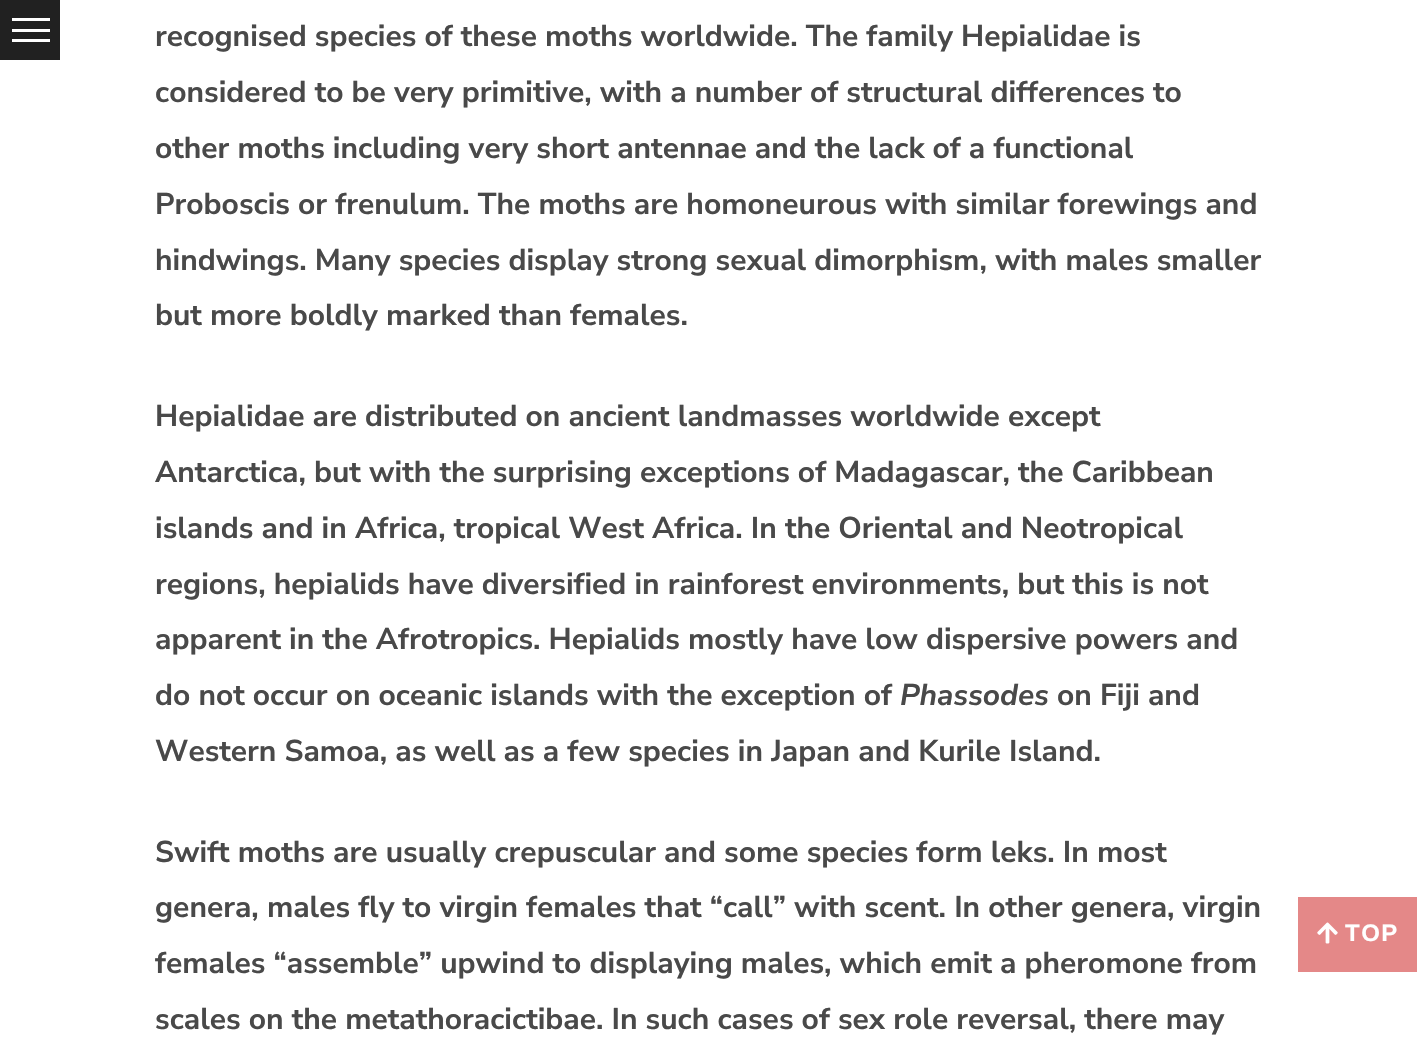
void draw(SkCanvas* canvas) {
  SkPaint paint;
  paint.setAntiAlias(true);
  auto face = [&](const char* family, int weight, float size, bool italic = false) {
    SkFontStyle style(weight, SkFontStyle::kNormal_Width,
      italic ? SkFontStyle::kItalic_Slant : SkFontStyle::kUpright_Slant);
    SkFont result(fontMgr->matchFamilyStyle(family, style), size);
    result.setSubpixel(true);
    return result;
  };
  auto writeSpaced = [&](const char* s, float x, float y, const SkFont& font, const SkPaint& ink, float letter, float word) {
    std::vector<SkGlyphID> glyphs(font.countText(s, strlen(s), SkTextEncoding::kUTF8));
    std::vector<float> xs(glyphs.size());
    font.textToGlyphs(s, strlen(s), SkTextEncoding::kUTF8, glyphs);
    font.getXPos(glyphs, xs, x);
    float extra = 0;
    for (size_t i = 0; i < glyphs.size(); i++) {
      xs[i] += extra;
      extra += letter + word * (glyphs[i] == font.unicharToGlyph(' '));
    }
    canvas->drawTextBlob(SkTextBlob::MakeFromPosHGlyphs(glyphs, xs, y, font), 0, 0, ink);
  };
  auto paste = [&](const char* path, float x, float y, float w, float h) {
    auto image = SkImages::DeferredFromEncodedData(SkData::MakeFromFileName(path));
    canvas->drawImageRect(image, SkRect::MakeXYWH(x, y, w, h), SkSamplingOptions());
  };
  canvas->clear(0xffffffff);
  {
    const struct { float x, y, w, h; SkColor color; } items[] = {
      {0, 0, 60, 60, 0xff212121},
      {12, 18, 38, 3, 0xffffffff},
      {12, 29, 38, 3, 0xffffffff},
      {12, 39, 38, 3, 0xffffffff},
      {1298, 897, 119, 75, 0xffe48888},
    };
    for (auto [x, y, w, h, color] : items) {
      paint.setColor(color);
      canvas->drawRect(SkRect::MakeXYWH(x, y, w, h), paint);
    }
  }
  paste("img/1.png", 1317, 922, 21, 22);
  auto f0 = face("Nunito Sans", 700, 30);
  paint.setColor(0xff494949);
  {
    const struct { const char* s; float x, y; } items[] = {
      {"recognised species of these moths worldwide. The family Hepialidae is", 155, 46},
      {"considered to be very primitive, with a number of structural differences to", 155, 102},
      {"other moths including very short antennae and the lack of a functional", 155, 158},
      {"Proboscis or frenulum. The moths are homoneurous with similar forewings and", 155, 214},
      {"hindwings. Many species display strong sexual dimorphism, with males smaller", 155, 270},
      {"but more boldly marked than females.", 155, 325},
      {"Hepialidae are distributed on ancient landmasses worldwide except", 155, 426},
      {"Antarctica, but with the surprising exceptions of Madagascar, the Caribbean", 155, 482},
      {"islands and in Africa, tropical West Africa. In the Oriental and Neotropical", 155, 538},
      {"regions, hepialids have diversified in rainforest environments, but this is not", 155, 594},
      {"apparent in the Afrotropics. Hepialids mostly have low dispersive powers and", 155, 649},
      {"do not occur on oceanic islands with the exception of", 155, 705},
    };
    for (auto [s, x, y] : items) {
      canvas->drawString(s, x, y, f0, paint);
    }
  }
  auto f1 = face("Nunito Sans", 700, 30, true);
  canvas->drawString("Phassodes", 900, 705, f1, paint);
  {
    const struct { const char* s; float x, y; } items[] = {
      {"on Fiji and", 1057, 705},
      {"Western Samoa, as well as a few species in Japan and Kurile Island.", 155, 761},
      {"Swift moths are usually crepuscular and some species form leks. In most", 155, 862},
      {"genera, males fly to virgin females that “call” with scent. In other genera, virgin", 155, 917},
      {"females “assemble” upwind to displaying males, which emit a pheromone from", 155, 973},
      {"scales on the metathoracictibae. In such cases of sex role reversal, there may", 155, 1029},
    };
    for (auto [s, x, y] : items) {
      canvas->drawString(s, x, y, f0, paint);
    }
  }
  auto f2 = face("Liberation Sans", 700, 24);
  paint.setColor(0xffffffff);
  writeSpaced("TOP", 1345, 941, f2, paint, 1.5f, 0);
}
